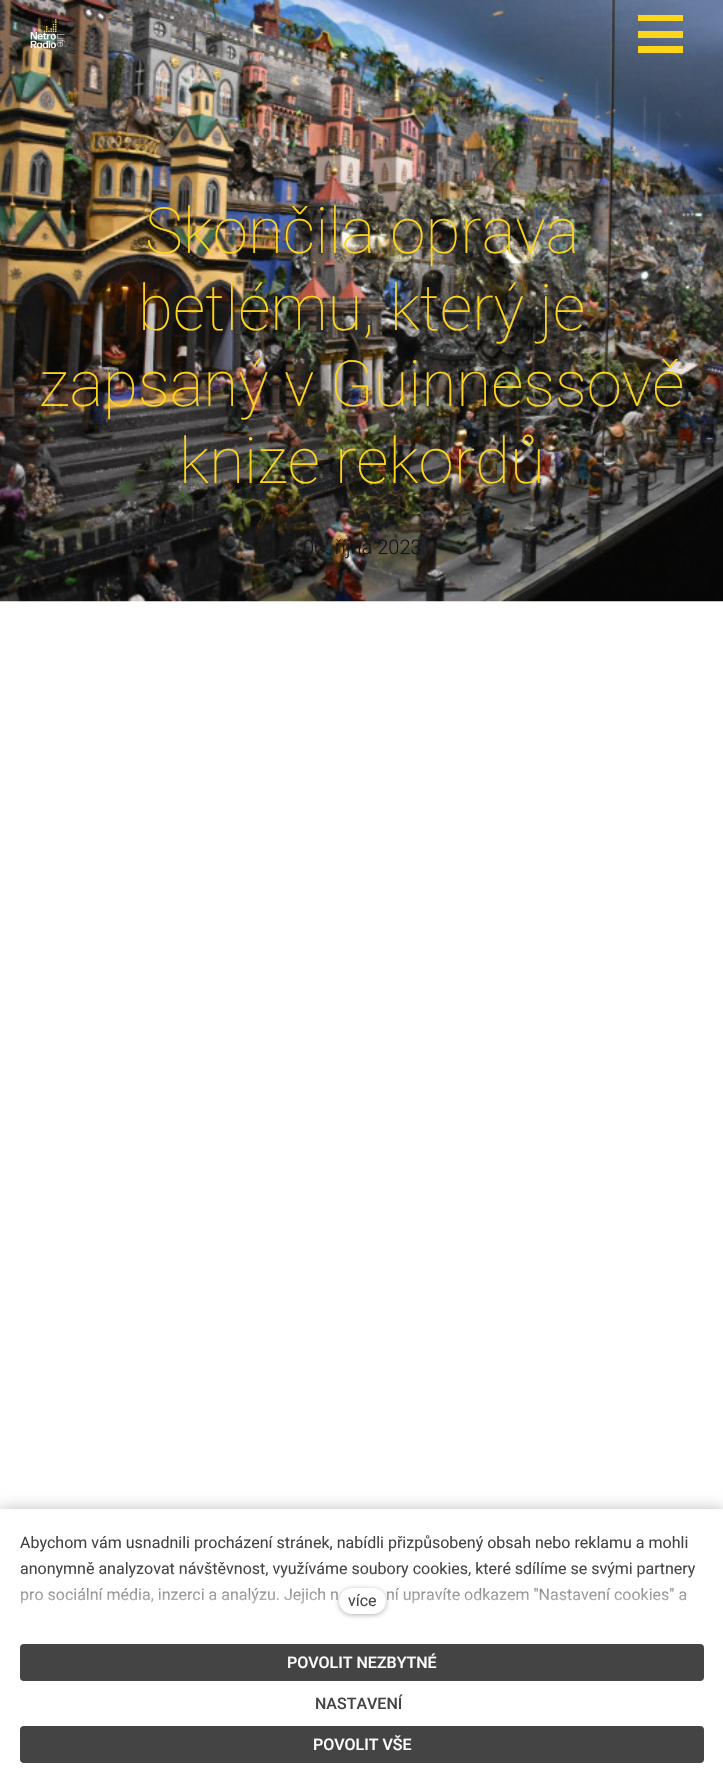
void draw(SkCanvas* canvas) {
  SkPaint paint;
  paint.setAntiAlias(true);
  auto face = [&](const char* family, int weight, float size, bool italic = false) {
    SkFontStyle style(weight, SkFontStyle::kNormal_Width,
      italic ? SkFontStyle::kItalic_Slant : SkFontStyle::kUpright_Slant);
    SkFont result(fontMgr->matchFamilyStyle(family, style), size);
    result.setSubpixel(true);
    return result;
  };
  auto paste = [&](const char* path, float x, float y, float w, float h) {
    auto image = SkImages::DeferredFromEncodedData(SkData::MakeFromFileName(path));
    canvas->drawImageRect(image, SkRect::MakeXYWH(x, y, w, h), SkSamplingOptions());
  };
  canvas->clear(0xffffffff);
  paste("img/2.png", 0, 0, 723, 602);
  paste("img/1.png", 30, 19, 35, 30);
  {
    const struct { float x, y, w, h; SkColor color; } items[] = {
      {638, 15, 45, 6, 0xffffd51b},
      {638, 31, 45, 7, 0xffffd51b},
      {638, 46, 45, 7, 0xffffd51b},
    };
    for (auto [x, y, w, h, color] : items) {
      paint.setColor(color);
      canvas->drawRect(SkRect::MakeXYWH(x, y, w, h), paint);
    }
  }
  paint.setColor(0x40000000);
  paint.setMaskFilter(SkMaskFilter::MakeBlur(kNormal_SkBlurStyle, 7.5f));
  canvas->drawRect(SkRect::MakeXYWH(0, 1509, 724, 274), paint);
  paint.setMaskFilter(nullptr);
  paint.setColor(0xffffffff);
  canvas->drawRect(SkRect::MakeXYWH(0, 1509, 723, 273), paint);
  paint.setColor(0xff444444);
  canvas->drawRoundRect(SkRect::MakeXYWH(20, 1644, 684, 37), 4, 4, paint);
  canvas->drawRoundRect(SkRect::MakeXYWH(20, 1726, 684, 37), 4, 4, paint);
  auto f0 = face("Roboto", 100, 63.75f);
  paint.setColor(0xffffd51b);
  {
    const struct { const char* s; float x, y; } items[] = {
      {"Skončila oprava", 145, 253},
      {"betlému, který je", 138, 330},
      {"zapsaný v Guinnessově", 39, 406},
      {"knize rekordů", 179, 483},
    };
    for (auto [s, x, y] : items) {
      canvas->drawString(s, x, y, f0, paint);
    }
  }
  auto f1 = face("Roboto", 300, 20);
  paint.setColor(0xff111517);
  canvas->drawString("06. října 2023", 303, 554, f1, paint);
  auto f2 = face("Roboto", 400, 16);
  paint.setColor(0xff444444);
  {
    const struct { const char* s; float x, y; } items[] = {
      {"Abychom vám usnadnili procházení stránek, nabídli přizpůsobený obsah nebo reklamu a mohli", 20, 1548},
      {"anonymně analyzovat návštěvnost, využíváme soubory cookies, které sdílíme se svými partnery", 20, 1574},
      {"pro sociální média, inzerci a analýzu. Jejich n", 20, 1600},
      {"ní upravíte odkazem \"Nastavení cookies\" a", 386, 1600},
    };
    for (auto [s, x, y] : items) {
      canvas->drawString(s, x, y, f2, paint);
    }
  }
  {
    const SkColor colors[] = {0xffffffff, 0x00ffffff};
    const float stops[] = {0, 1};
    const SkPoint ends[] = {{362, 1624}, {362, 1570}};
    paint.setShader(SkGradientShader::MakeLinear(ends, colors, stops, 2, SkTileMode::kClamp));
    paint.setAlpha(255);
  }
  canvas->drawRect(SkRect::MakeXYWH(21, 1571, 672, 33), paint);
  paint.setShader(nullptr);
  paint.setColor(0x4d000000);
  paint.setMaskFilter(SkMaskFilter::MakeBlur(kNormal_SkBlurStyle, 2.5f));
  canvas->drawRoundRect(SkRect::MakeXYWH(339, 1589, 47, 26), 13, 13, paint);
  paint.setMaskFilter(nullptr);
  paint.setColor(0xffffffff);
  canvas->drawRoundRect(SkRect::MakeXYWH(339, 1588, 47, 26), 13, 13, paint);
  paint.setColor(0xff444444);
  canvas->drawString("více", 348, 1606, f2, paint);
  auto f3 = face("Roboto", 500, 16);
  paint.setColor(0xffffffff);
  canvas->drawString("POVOLIT NEZBYTNÉ", 287, 1668, f3, paint);
  paint.setColor(0xff444444);
  canvas->drawString("NASTAVENÍ", 315, 1709, f3, paint);
  paint.setColor(0xffffffff);
  canvas->drawString("POVOLIT VŠE", 313, 1750, f3, paint);
}
